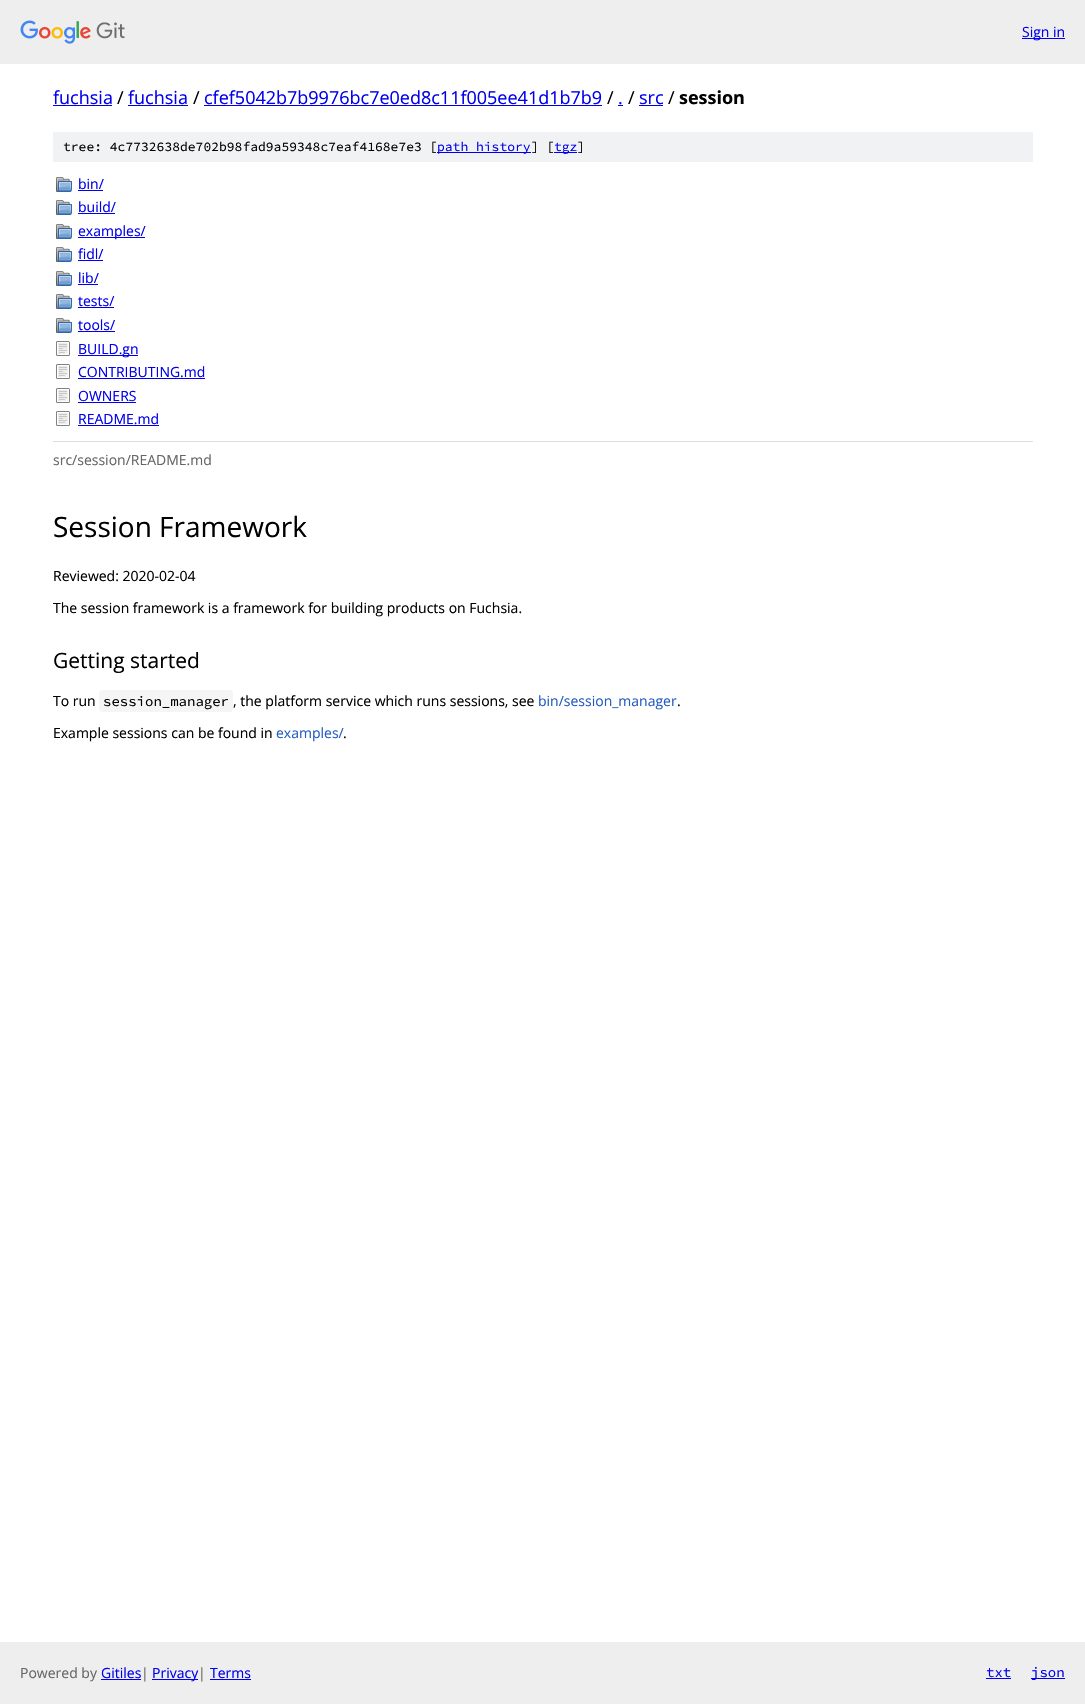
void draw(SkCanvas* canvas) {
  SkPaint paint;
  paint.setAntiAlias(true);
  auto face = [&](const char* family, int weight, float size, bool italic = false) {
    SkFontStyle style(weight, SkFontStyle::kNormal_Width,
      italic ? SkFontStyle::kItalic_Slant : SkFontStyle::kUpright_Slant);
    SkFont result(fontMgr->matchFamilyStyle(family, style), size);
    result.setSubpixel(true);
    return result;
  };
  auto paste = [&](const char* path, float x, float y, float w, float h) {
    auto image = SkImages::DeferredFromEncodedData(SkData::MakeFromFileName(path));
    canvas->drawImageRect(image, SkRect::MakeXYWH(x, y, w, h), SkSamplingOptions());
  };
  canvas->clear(0xffffffff);
  paint.setColor(0xffeeeeee);
  canvas->drawRect(SkRect::MakeXYWH(0, 0, 1085, 64), paint);
  paste("img/1.png", 20, 20, 105, 24);
  {
    const struct { float x, y, w, h; SkColor color; } items[] = {
      {1022, 38, 43, 1, 0xff0000ee},
      {53, 105, 59, 1, 0xff0000ee},
      {128, 105, 60, 1, 0xff0000ee},
      {204, 105, 398, 1, 0xff0000ee},
      {618, 105, 5, 1, 0xff0000ee},
      {639, 105, 24, 1, 0xff0000ee},
      {53, 132, 980, 30, 0xfff1f2f3},
      {437, 152, 94, 1, 0xff0000ee},
      {554, 152, 23, 1, 0xff0000ee},
    };
    for (auto [x, y, w, h, color] : items) {
      paint.setColor(color);
      canvas->drawRect(SkRect::MakeXYWH(x, y, w, h), paint);
    }
  }
  paste("img/2.png", 56, 177, 16, 15);
  canvas->drawRect(SkRect::MakeXYWH(78, 190, 25, 1), paint);
  paste("img/2.png", 56, 200, 16, 15);
  canvas->drawRect(SkRect::MakeXYWH(78, 213, 37, 1), paint);
  paste("img/2.png", 56, 224, 16, 15);
  canvas->drawRect(SkRect::MakeXYWH(78, 237, 67, 1), paint);
  paste("img/2.png", 56, 247, 16, 15);
  canvas->drawRect(SkRect::MakeXYWH(78, 260, 25, 1), paint);
  paste("img/2.png", 56, 271, 16, 15);
  canvas->drawRect(SkRect::MakeXYWH(78, 284, 20, 1), paint);
  paste("img/2.png", 56, 294, 16, 15);
  canvas->drawRect(SkRect::MakeXYWH(78, 307, 36, 1), paint);
  paste("img/2.png", 56, 318, 16, 15);
  canvas->drawRect(SkRect::MakeXYWH(78, 331, 37, 1), paint);
  paste("img/3.png", 56, 341, 14, 15);
  canvas->drawRect(SkRect::MakeXYWH(78, 355, 60, 1), paint);
  paste("img/3.png", 56, 364, 14, 15);
  canvas->drawRect(SkRect::MakeXYWH(78, 378, 127, 1), paint);
  paste("img/3.png", 56, 388, 14, 15);
  canvas->drawRect(SkRect::MakeXYWH(78, 402, 58, 1), paint);
  paste("img/3.png", 56, 411, 14, 15);
  canvas->drawRect(SkRect::MakeXYWH(78, 425, 81, 1), paint);
  paint.setColor(0xffdddddd);
  canvas->drawRect(SkRect::MakeXYWH(53, 441, 980, 1), paint);
  paint.setColor(0xfff5f5f5);
  canvas->drawRoundRect(SkRect::MakeXYWH(99, 690, 134, 22), 4, 4, paint);
  {
    const struct { float x, y, w, h; SkColor color; } items[] = {
      {0, 1642, 1085, 62, 0xffeeeeee},
      {101, 1679, 40, 1, 0xff0000ee},
      {152, 1679, 46, 1, 0xff0000ee},
      {210, 1679, 41, 1, 0xff0000ee},
      {986, 1678, 25, 1, 0xff0000ee},
      {1031, 1678, 34, 1, 0xff0000ee},
    };
    for (auto [x, y, w, h, color] : items) {
      paint.setColor(color);
      canvas->drawRect(SkRect::MakeXYWH(x, y, w, h), paint);
    }
  }
  auto f0 = face("Open Sans", 400, 14);
  canvas->drawString("Sign in", 1022, 37, f0, paint);
  auto f1 = face("Open Sans", 400, 18);
  canvas->drawString("fuchsia", 53, 104, f1, paint);
  paint.setColor(0xff000000);
  canvas->drawString("/", 117, 104, f1, paint);
  paint.setColor(0xff0000ee);
  canvas->drawString("fuchsia", 128, 104, f1, paint);
  paint.setColor(0xff000000);
  canvas->drawString("/", 193, 104, f1, paint);
  paint.setColor(0xff0000ee);
  canvas->drawString("cfef5042b7b9976bc7e0ed8c11f005ee41d1b7b9", 204, 104, f1, paint);
  paint.setColor(0xff000000);
  canvas->drawString("/", 607, 104, f1, paint);
  paint.setColor(0xff0000ee);
  canvas->drawString(".", 618, 104, f1, paint);
  paint.setColor(0xff000000);
  canvas->drawString("/", 628, 104, f1, paint);
  paint.setColor(0xff0000ee);
  canvas->drawString("src", 639, 104, f1, paint);
  paint.setColor(0xff000000);
  canvas->drawString("/", 668, 104, f1, paint);
  auto f2 = face("Open Sans", 700, 18);
  canvas->drawString("session", 679, 104, f2, paint);
  auto f3 = face("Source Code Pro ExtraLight", 200, 13);
  canvas->drawString("tree: 4c7732638de702b98fad9a59348c7eaf4168e7e3 [", 63, 151, f3, paint);
  paint.setColor(0xff0000ee);
  canvas->drawString("path history", 437, 151, f3, paint);
  paint.setColor(0xff000000);
  canvas->drawString("] [", 531, 151, f3, paint);
  paint.setColor(0xff0000ee);
  canvas->drawString("tgz", 554, 151, f3, paint);
  paint.setColor(0xff000000);
  canvas->drawString("]", 577, 151, f3, paint);
  paint.setColor(0xff0000ee);
  {
    const struct { const char* s; float x, y; } items[] = {
      {"bin/", 78, 189},
      {"build/", 78, 212},
      {"examples/", 78, 236},
      {"fidl/", 78, 259},
      {"lib/", 78, 283},
      {"tests/", 78, 306},
      {"tools/", 78, 330},
      {"BUILD.gn", 78, 354},
      {"CONTRIBUTING.md", 78, 377},
      {"OWNERS", 78, 401},
      {"README.md", 78, 424},
    };
    for (auto [s, x, y] : items) {
      canvas->drawString(s, x, y, f0, paint);
    }
  }
  paint.setColor(0xff666666);
  canvas->drawString("src/session/README.md", 53, 465, f0, paint);
  auto f4 = face("Open Sans", 400, 28);
  paint.setColor(0xff000000);
  canvas->drawString("Session Framework", 53, 537, f4, paint);
  canvas->drawString("Reviewed: 2020-02-04", 53, 581, f0, paint);
  canvas->drawString("The session framework is a framework for building products on Fuchsia.", 53, 613, f0, paint);
  auto f5 = face("Open Sans", 400, 21);
  canvas->drawString("Getting started", 53, 668, f5, paint);
  canvas->drawString("To run", 53, 706, f0, paint);
  auto f6 = face("Source Code Pro ExtraLight", 200, 14);
  canvas->drawString("session_manager", 103, 706, f6, paint);
  canvas->drawString(", the platform service which runs sessions, see", 233, 706, f0, paint);
  paint.setColor(0xff245dc1);
  canvas->drawString("bin/session_manager", 538, 706, f0, paint);
  paint.setColor(0xff000000);
  canvas->drawString(".", 677, 706, f0, paint);
  canvas->drawString("Example sessions can be found in", 53, 738, f0, paint);
  paint.setColor(0xff245dc1);
  canvas->drawString("examples/", 276, 738, f0, paint);
  paint.setColor(0xff000000);
  canvas->drawString(".", 343, 738, f0, paint);
  paint.setColor(0xff666666);
  canvas->drawString("Powered by", 20, 1678, f0, paint);
  paint.setColor(0xff0000ee);
  canvas->drawString("Gitiles", 101, 1678, f0, paint);
  paint.setColor(0xff666666);
  canvas->drawString("|", 141, 1678, f0, paint);
  paint.setColor(0xff0000ee);
  canvas->drawString("Privacy", 152, 1678, f0, paint);
  paint.setColor(0xff666666);
  canvas->drawString("|", 198, 1678, f0, paint);
  paint.setColor(0xff0000ee);
  canvas->drawString("Terms", 210, 1678, f0, paint);
  canvas->drawString("txt", 986, 1677, f6, paint);
  canvas->drawString("json", 1031, 1677, f6, paint);
}
